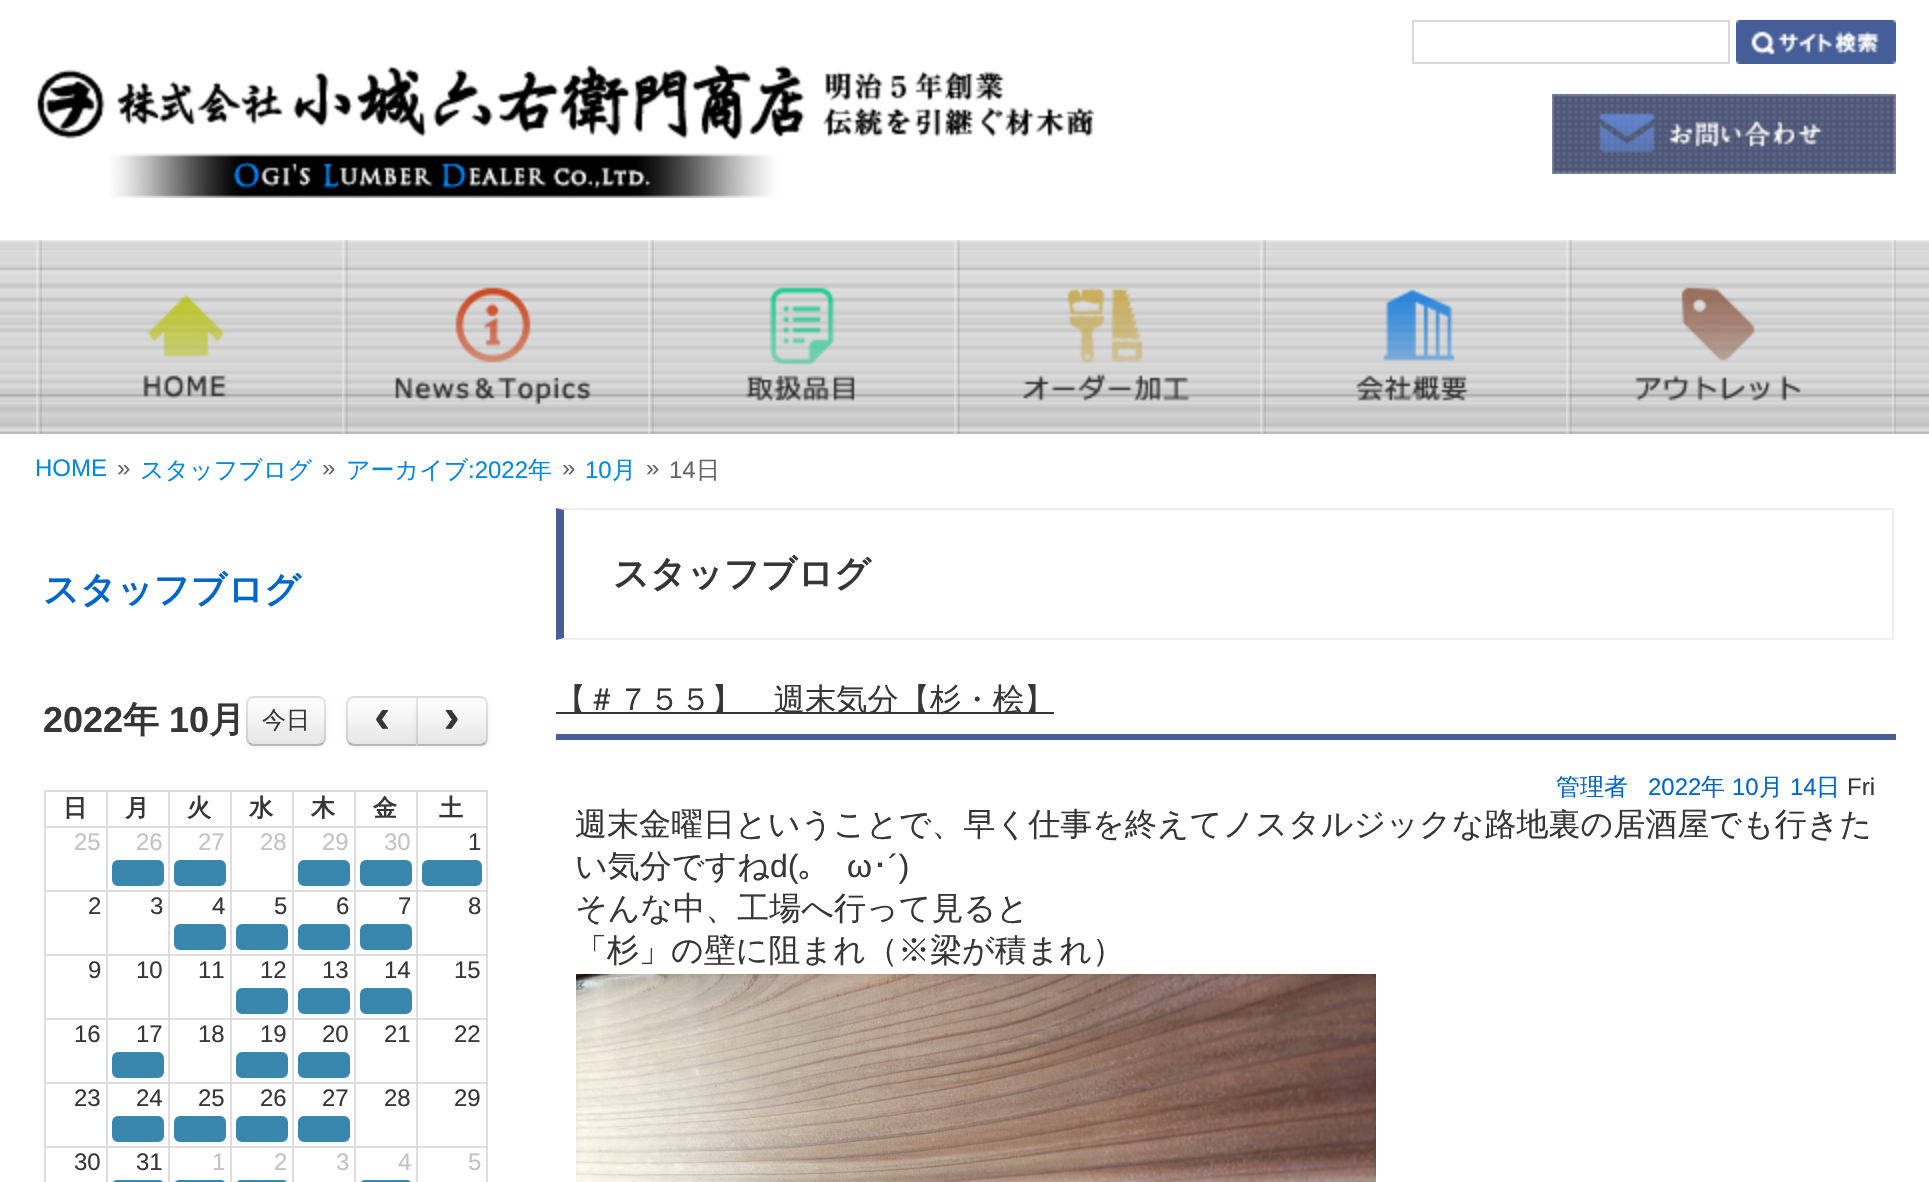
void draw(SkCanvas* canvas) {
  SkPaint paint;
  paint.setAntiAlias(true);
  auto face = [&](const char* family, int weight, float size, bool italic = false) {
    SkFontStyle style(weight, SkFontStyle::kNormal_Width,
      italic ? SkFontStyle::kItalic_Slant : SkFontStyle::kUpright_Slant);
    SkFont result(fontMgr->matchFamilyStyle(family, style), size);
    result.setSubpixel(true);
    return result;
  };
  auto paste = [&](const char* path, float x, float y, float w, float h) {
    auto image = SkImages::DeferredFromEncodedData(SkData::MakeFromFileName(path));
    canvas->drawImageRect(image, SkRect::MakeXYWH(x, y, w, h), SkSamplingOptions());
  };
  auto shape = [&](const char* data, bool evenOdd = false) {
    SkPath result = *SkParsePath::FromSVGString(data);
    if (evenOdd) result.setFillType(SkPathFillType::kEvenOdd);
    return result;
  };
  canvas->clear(0xffffffff);
  paint.setStroke(true);
  paint.setStrokeWidth(2);
  paint.setColor(0xffd9d8d8);
  canvas->drawRect(SkRect::MakeXYWH(1413, 21, 316, 42), paint);
  paste("img/1.png", 1736, 20, 160, 44);
  paste("img/2.png", 37, 64, 1057, 134);
  paste("img/3.png", 1552, 94, 344, 80);
  paste("img/4.png", 0, 240, 1929, 194);
  paste("img/5.png", 1892, 240, 4, 194);
  paste("img/6.png", 36, 240, 6, 194);
  paste("img/7.png", 143, 295, 84, 104);
  paste("img/8.png", 342, 240, 6, 194);
  paste("img/9.png", 395, 287, 196, 118);
  paste("img/6.png", 648, 240, 6, 194);
  paste("img/10.png", 745, 287, 110, 114);
  paste("img/6.png", 954, 240, 6, 194);
  paste("img/11.png", 1022, 287, 169, 114);
  paste("img/8.png", 1260, 240, 6, 194);
  paste("img/12.png", 1355, 289, 114, 112);
  paste("img/6.png", 1566, 240, 6, 194);
  paste("img/13.png", 1635, 287, 166, 114);
  paint.setStroke(false);
  paint.setColor(0x0d000000);
  paint.setMaskFilter(SkMaskFilter::MakeBlur(kNormal_SkBlurStyle, 2));
  canvas->drawRoundRect(SkRect::MakeXYWH(246, 698, 80, 50), 8, 8, paint);
  paint.setMaskFilter(nullptr);
  paint.setColor(0xfff5f5f5);
  canvas->drawRoundRect(SkRect::MakeXYWH(246, 696, 80, 50), 8, 8, paint);
  canvas->save();
  canvas->clipPath(shape("M254 696H318C322.5 696 326 699.5 326 704V738C326 742.5 322.5 746 318 746H254C249.5 746 246 742.5 246 738V704C246 699.5 249.5 696 254 696Z"), true);
  {
    const SkColor colors[] = {0xffffffff, 0xffe6e6e6};
    const float stops[] = {0, 1};
    const SkPoint ends[] = {{286, 698}, {286, 744}};
    paint.setShader(SkGradientShader::MakeLinear(ends, colors, stops, 2, SkTileMode::kClamp));
    paint.setAlpha(255);
  }
  canvas->drawRect(SkRect::MakeXYWH(246, 698, 80, 46), paint);
  canvas->restore();
  paint.setStroke(true);
  paint.setShader(nullptr);
  paint.setColor(0x40000000);
  canvas->drawPath(shape("M323 743C321.5 744.5 320 745 318 745H254C252 745 250.5 744.5 249 743"), paint);
  paint.setColor(0x1a000000);
  canvas->drawPath(shape("M249 743C247.5 741.5 247 740 247 738V704C247 702 247.5 700.5 249 699C250.5 697.5 252 697 254 697H318C320 697 321.5 697.5 323 699C324.5 700.5 325 702 325 704V738C325 740 324.5 741.5 323 743"), paint);
  paint.setStroke(false);
  paint.setColor(0x0d000000);
  paint.setMaskFilter(SkMaskFilter::MakeBlur(kNormal_SkBlurStyle, 2));
  canvas->drawRoundRect(SkRect::MakeXYWH(346, 698, 72, 50), 8, 8, paint);
  paint.setMaskFilter(nullptr);
  paint.setColor(0xfff5f5f5);
  canvas->drawPath(shape("M354 696H418V746H354C349.5 746 346 742.5 346 738V704C346 699.5 349.5 696 354 696Z"), paint);
  canvas->save();
  canvas->clipPath(shape("M354 696H418V746H354C349.5 746 346 742.5 346 738V704C346 699.5 349.5 696 354 696Z"), true);
  {
    const SkColor colors[] = {0xffffffff, 0xffe6e6e6};
    const float stops[] = {0, 1};
    const SkPoint ends[] = {{382, 698}, {382, 744}};
    paint.setShader(SkGradientShader::MakeLinear(ends, colors, stops, 2, SkTileMode::kClamp));
    paint.setAlpha(255);
  }
  canvas->drawRect(SkRect::MakeXYWH(346, 698, 70, 46), paint);
  canvas->restore();
  paint.setShader(nullptr);
  paint.setColor(0x1a000000);
  canvas->drawPath(shape("M354 696C352 696 350 697 348 698L350 700C351 699 352 698 354 698H416L418 696Z"), paint);
  paint.setColor(0x40000000);
  canvas->drawPath(shape("M418 746L416 744H354C352 744 351 743 350 742L348 744C350 745 352 746 354 746Z"), paint);
  paint.setColor(0x1a000000);
  canvas->drawPath(shape("M346 704V738C346 740 347 742 348 744L350 742C349 741 348 740 348 738V704C348 702 349 701 350 700L348 698C347 700 346 702 346 704Z"), paint);
  paint.setColor(0x0d000000);
  paint.setMaskFilter(SkMaskFilter::MakeBlur(kNormal_SkBlurStyle, 2));
  canvas->drawRoundRect(SkRect::MakeXYWH(416, 698, 72, 50), 8, 8, paint);
  paint.setMaskFilter(nullptr);
  paint.setColor(0xfff5f5f5);
  canvas->drawPath(shape("M416 696H480C484.5 696 488 699.5 488 704V738C488 742.5 484.5 746 480 746H416Z"), paint);
  canvas->save();
  canvas->clipPath(shape("M416 696H480C484.5 696 488 699.5 488 704V738C488 742.5 484.5 746 480 746H416Z"), true);
  {
    const SkColor colors[] = {0xffffffff, 0xffe6e6e6};
    const float stops[] = {0, 1};
    const SkPoint ends[] = {{452, 698}, {452, 744}};
    paint.setShader(SkGradientShader::MakeLinear(ends, colors, stops, 2, SkTileMode::kClamp));
    paint.setAlpha(255);
  }
  canvas->drawRect(SkRect::MakeXYWH(416, 698, 72, 46), paint);
  canvas->restore();
  paint.setShader(nullptr);
  paint.setColor(0x1a000000);
  canvas->drawPath(shape("M416 696L418 698H480C482 698 483 699 484 700L486 698C484 697 482 696 480 696Z"), paint);
  canvas->drawPath(shape("M488 738V704C488 702 487 700 486 698L484 700C485 701 486 702 486 704V738C486 740 485 741 484 742L486 744C487 742 488 740 488 738Z"), paint);
  paint.setColor(0x40000000);
  canvas->drawPath(shape("M480 746C482 746 484 745 486 744L484 742C483 743 482 744 480 744H418L416 746Z"), paint);
  paint.setColor(0x1a000000);
  canvas->drawPath(shape("M416 696V746L418 744V698Z"), paint);
  {
    const struct { float x, y, w, h; SkColor color; } items[] = {
      {44, 790, 372, 2, 0xffdddddd},
      {44, 826, 372, 2, 0xffdddddd},
      {44, 790, 2, 100, 0xffdddddd},
      {106, 790, 2, 100, 0xffdddddd},
      {168, 790, 2, 100, 0xffdddddd},
      {230, 790, 2, 100, 0xffdddddd},
      {292, 790, 2, 100, 0xffdddddd},
      {354, 790, 2, 100, 0xffdddddd},
    };
    for (auto [x, y, w, h, color] : items) {
      paint.setColor(color);
      canvas->drawRect(SkRect::MakeXYWH(x, y, w, h), paint);
    }
  }
  paint.setStroke(true);
  canvas->drawRect(SkRect::MakeXYWH(417, 791, 70, 36), paint);
  paint.setStroke(false);
  {
    const struct { float x, y, w, h; SkColor color; } items[] = {
      {486, 828, 2, 62, 0xffdddddd},
      {416, 828, 2, 62, 0xffdddddd},
      {44, 890, 444, 2, 0xffdddddd},
      {44, 890, 2, 64, 0xffdddddd},
      {106, 890, 2, 64, 0xffdddddd},
      {168, 890, 2, 64, 0xffdddddd},
      {230, 890, 2, 64, 0xffdddddd},
      {292, 890, 2, 64, 0xffdddddd},
      {354, 890, 2, 64, 0xffdddddd},
      {486, 890, 2, 64, 0xffdddddd},
      {416, 890, 2, 64, 0xffdddddd},
      {44, 954, 444, 2, 0xffdddddd},
      {44, 954, 2, 64, 0xffdddddd},
      {106, 954, 2, 64, 0xffdddddd},
      {168, 954, 2, 64, 0xffdddddd},
      {230, 954, 2, 64, 0xffdddddd},
      {292, 954, 2, 64, 0xffdddddd},
      {354, 954, 2, 64, 0xffdddddd},
      {486, 954, 2, 64, 0xffdddddd},
      {416, 954, 2, 64, 0xffdddddd},
      {44, 1018, 444, 2, 0xffdddddd},
      {44, 1018, 2, 64, 0xffdddddd},
      {106, 1018, 2, 64, 0xffdddddd},
      {168, 1018, 2, 64, 0xffdddddd},
      {230, 1018, 2, 64, 0xffdddddd},
      {292, 1018, 2, 64, 0xffdddddd},
      {354, 1018, 2, 64, 0xffdddddd},
      {486, 1018, 2, 64, 0xffdddddd},
      {416, 1018, 2, 64, 0xffdddddd},
      {44, 1082, 444, 2, 0xffdddddd},
      {44, 1082, 2, 64, 0xffdddddd},
      {106, 1082, 2, 64, 0xffdddddd},
      {168, 1082, 2, 64, 0xffdddddd},
      {230, 1082, 2, 64, 0xffdddddd},
      {292, 1082, 2, 64, 0xffdddddd},
      {354, 1082, 2, 64, 0xffdddddd},
      {486, 1082, 2, 64, 0xffdddddd},
      {416, 1082, 2, 64, 0xffdddddd},
      {44, 1146, 372, 2, 0xffdddddd},
      {44, 1146, 2, 36, 0xffdddddd},
      {106, 1146, 2, 36, 0xffdddddd},
      {168, 1146, 2, 36, 0xffdddddd},
      {230, 1146, 2, 36, 0xffdddddd},
      {292, 1146, 2, 36, 0xffdddddd},
      {354, 1146, 2, 36, 0xffdddddd},
    };
    for (auto [x, y, w, h, color] : items) {
      paint.setColor(color);
      canvas->drawRect(SkRect::MakeXYWH(x, y, w, h), paint);
    }
  }
  paint.setStroke(true);
  canvas->drawRect(SkRect::MakeXYWH(417, 1147, 70, 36), paint);
  paint.setStroke(false);
  paint.setColor(0xff3a87ad);
  canvas->drawRoundRect(SkRect::MakeXYWH(113, 861, 50, 24), 5, 5, paint);
  paint.setStroke(true);
  canvas->drawRoundRect(SkRect::MakeXYWH(113, 861, 50, 24), 5, 5, paint);
  paint.setStroke(false);
  canvas->drawRoundRect(SkRect::MakeXYWH(175, 861, 50, 24), 5, 5, paint);
  paint.setStroke(true);
  canvas->drawRoundRect(SkRect::MakeXYWH(175, 861, 50, 24), 5, 5, paint);
  paint.setStroke(false);
  canvas->drawRoundRect(SkRect::MakeXYWH(299, 861, 50, 24), 5, 5, paint);
  paint.setStroke(true);
  canvas->drawRoundRect(SkRect::MakeXYWH(299, 861, 50, 24), 5, 5, paint);
  paint.setStroke(false);
  canvas->drawRoundRect(SkRect::MakeXYWH(361, 861, 50, 24), 5, 5, paint);
  paint.setStroke(true);
  canvas->drawRoundRect(SkRect::MakeXYWH(361, 861, 50, 24), 5, 5, paint);
  paint.setStroke(false);
  canvas->drawRoundRect(SkRect::MakeXYWH(423, 861, 58, 24), 5, 5, paint);
  paint.setStroke(true);
  canvas->drawRoundRect(SkRect::MakeXYWH(423, 861, 58, 24), 5, 5, paint);
  paint.setStroke(false);
  canvas->drawRoundRect(SkRect::MakeXYWH(175, 925, 50, 24), 5, 5, paint);
  paint.setStroke(true);
  canvas->drawRoundRect(SkRect::MakeXYWH(175, 925, 50, 24), 5, 5, paint);
  paint.setStroke(false);
  canvas->drawRoundRect(SkRect::MakeXYWH(237, 925, 50, 24), 5, 5, paint);
  paint.setStroke(true);
  canvas->drawRoundRect(SkRect::MakeXYWH(237, 925, 50, 24), 5, 5, paint);
  paint.setStroke(false);
  canvas->drawRoundRect(SkRect::MakeXYWH(299, 925, 50, 24), 5, 5, paint);
  paint.setStroke(true);
  canvas->drawRoundRect(SkRect::MakeXYWH(299, 925, 50, 24), 5, 5, paint);
  paint.setStroke(false);
  canvas->drawRoundRect(SkRect::MakeXYWH(361, 925, 50, 24), 5, 5, paint);
  paint.setStroke(true);
  canvas->drawRoundRect(SkRect::MakeXYWH(361, 925, 50, 24), 5, 5, paint);
  paint.setStroke(false);
  canvas->drawRoundRect(SkRect::MakeXYWH(237, 989, 50, 24), 5, 5, paint);
  paint.setStroke(true);
  canvas->drawRoundRect(SkRect::MakeXYWH(237, 989, 50, 24), 5, 5, paint);
  paint.setStroke(false);
  canvas->drawRoundRect(SkRect::MakeXYWH(299, 989, 50, 24), 5, 5, paint);
  paint.setStroke(true);
  canvas->drawRoundRect(SkRect::MakeXYWH(299, 989, 50, 24), 5, 5, paint);
  paint.setStroke(false);
  canvas->drawRoundRect(SkRect::MakeXYWH(361, 989, 50, 24), 5, 5, paint);
  paint.setStroke(true);
  canvas->drawRoundRect(SkRect::MakeXYWH(361, 989, 50, 24), 5, 5, paint);
  paint.setStroke(false);
  canvas->drawRoundRect(SkRect::MakeXYWH(113, 1053, 50, 24), 5, 5, paint);
  paint.setStroke(true);
  canvas->drawRoundRect(SkRect::MakeXYWH(113, 1053, 50, 24), 5, 5, paint);
  paint.setStroke(false);
  canvas->drawRoundRect(SkRect::MakeXYWH(237, 1053, 50, 24), 5, 5, paint);
  paint.setStroke(true);
  canvas->drawRoundRect(SkRect::MakeXYWH(237, 1053, 50, 24), 5, 5, paint);
  paint.setStroke(false);
  canvas->drawRoundRect(SkRect::MakeXYWH(299, 1053, 50, 24), 5, 5, paint);
  paint.setStroke(true);
  canvas->drawRoundRect(SkRect::MakeXYWH(299, 1053, 50, 24), 5, 5, paint);
  paint.setStroke(false);
  canvas->drawRoundRect(SkRect::MakeXYWH(113, 1117, 50, 24), 5, 5, paint);
  paint.setStroke(true);
  canvas->drawRoundRect(SkRect::MakeXYWH(113, 1117, 50, 24), 5, 5, paint);
  paint.setStroke(false);
  canvas->drawRoundRect(SkRect::MakeXYWH(175, 1117, 50, 24), 5, 5, paint);
  paint.setStroke(true);
  canvas->drawRoundRect(SkRect::MakeXYWH(175, 1117, 50, 24), 5, 5, paint);
  paint.setStroke(false);
  canvas->drawRoundRect(SkRect::MakeXYWH(237, 1117, 50, 24), 5, 5, paint);
  paint.setStroke(true);
  canvas->drawRoundRect(SkRect::MakeXYWH(237, 1117, 50, 24), 5, 5, paint);
  paint.setStroke(false);
  canvas->drawRoundRect(SkRect::MakeXYWH(299, 1117, 50, 24), 5, 5, paint);
  paint.setStroke(true);
  canvas->drawRoundRect(SkRect::MakeXYWH(299, 1117, 50, 24), 5, 5, paint);
  canvas->drawRoundRect(SkRect::MakeXYWH(113, 1181, 50, 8), 5, 5, paint);
  canvas->drawRoundRect(SkRect::MakeXYWH(175, 1181, 50, 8), 5, 5, paint);
  canvas->drawRoundRect(SkRect::MakeXYWH(237, 1181, 50, 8), 5, 5, paint);
  canvas->drawRoundRect(SkRect::MakeXYWH(361, 1181, 50, 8), 5, 5, paint);
  paint.setStroke(false);
  paint.setColor(0xffefefef);
  canvas->drawPath(shape("M556 508H1894L1892 510H564Z"), paint);
  canvas->drawRect(SkRect::MakeXYWH(1892, 508, 2, 132), paint);
  canvas->drawPath(shape("M1894 640H556L564 638H1892Z"), paint);
  paint.setColor(0xff475e96);
  canvas->drawPath(shape("M556 640V508L564 510V638Z"), paint);
  canvas->drawRect(SkRect::MakeXYWH(556, 734, 1340, 6), paint);
  paint.setColor(0xff363636);
  canvas->drawRect(SkRect::MakeXYWH(556, 712, 498, 2), paint);
  paste("img/14.png", 576, 974, 800, 208);
  auto f0 = face("Liberation Sans", 400, 24);
  paint.setColor(0xff0188e1);
  canvas->drawString("HOME", 35, 476, f0, paint);
  paint.setColor(0xff666666);
  canvas->drawString("»", 117, 476, f0, paint);
  auto f1 = face("WenQuanYi Zen Hei", 500, 24);
  paint.setColor(0xff0188e1);
  canvas->drawString("スタッフブログ", 140, 478, f1, paint);
  paint.setColor(0xff666666);
  canvas->drawString("»", 322, 476, f0, paint);
  paint.setColor(0xff0188e1);
  canvas->drawString("アーカイブ", 346, 478, f1, paint);
  canvas->drawString(":2022", 468, 478, f0, paint);
  canvas->drawString("年", 528, 478, f1, paint);
  paint.setColor(0xff666666);
  canvas->drawString("»", 562, 476, f0, paint);
  paint.setColor(0xff0188e1);
  canvas->drawString("10", 585, 478, f0, paint);
  canvas->drawString("月", 612, 478, f1, paint);
  paint.setColor(0xff666666);
  canvas->drawString("»", 646, 476, f0, paint);
  canvas->drawString("14", 669, 478, f0, paint);
  canvas->drawString("日", 696, 478, f1, paint);
  auto f2 = face("WenQuanYi Zen Hei", 700, 36);
  paint.setColor(0xff0066cc);
  canvas->drawString("スタッフブログ", 43, 602, f2, paint);
  auto f3 = face("Liberation Sans", 700, 36);
  paint.setColor(0xff363636);
  canvas->drawString("2022", 43, 732, f3, paint);
  canvas->drawString("年", 123, 732, f2, paint);
  canvas->drawString("10", 169, 732, f3, paint);
  canvas->drawString("月", 209, 732, f2, paint);
  canvas->drawString("今日", 262, 728, f1, paint);
  auto f4 = face("Liberation Mono", 700, 48);
  canvas->drawString("‹", 368, 732, f4, paint);
  canvas->drawString("›", 437, 732, f4, paint);
  auto f5 = face("WenQuanYi Zen Hei", 700, 24);
  {
    const struct { const char* s; float x, y; } items[] = {
      {"日", 63, 816},
      {"月", 125, 816},
      {"火", 187, 816},
      {"水", 249, 816},
      {"木", 311, 816},
      {"金", 373, 816},
      {"土", 439, 816},
    };
    for (auto [s, x, y] : items) {
      canvas->drawString(s, x, y, f5, paint);
    }
  }
  paint.setColor(0xffc3c3c3);
  {
    const struct { const char* s; float x, y; } items[] = {
      {"25", 74, 850},
      {"26", 136, 850},
      {"27", 198, 850},
      {"28", 260, 850},
      {"29", 322, 850},
      {"30", 384, 850},
    };
    for (auto [s, x, y] : items) {
      canvas->drawString(s, x, y, f0, paint);
    }
  }
  paint.setColor(0xff363636);
  {
    const struct { const char* s; float x, y; } items[] = {
      {"1", 468, 850},
      {"2", 88, 914},
      {"3", 150, 914},
      {"4", 212, 914},
      {"5", 274, 914},
      {"6", 336, 914},
      {"7", 398, 914},
      {"8", 468, 914},
      {"9", 88, 978},
      {"10", 136, 978},
      {"11", 198, 978},
      {"12", 260, 978},
      {"13", 322, 978},
      {"14", 384, 978},
      {"15", 454, 978},
      {"16", 74, 1042},
      {"17", 136, 1042},
      {"18", 198, 1042},
      {"19", 260, 1042},
      {"20", 322, 1042},
      {"21", 384, 1042},
      {"22", 454, 1042},
      {"23", 74, 1106},
      {"24", 136, 1106},
      {"25", 198, 1106},
      {"26", 260, 1106},
      {"27", 322, 1106},
      {"28", 384, 1106},
      {"29", 454, 1106},
      {"30", 74, 1170},
      {"31", 136, 1170},
    };
    for (auto [s, x, y] : items) {
      canvas->drawString(s, x, y, f0, paint);
    }
  }
  paint.setColor(0xffc3c3c3);
  {
    const struct { const char* s; float x, y; } items[] = {
      {"1", 212, 1170},
      {"2", 274, 1170},
      {"3", 336, 1170},
      {"4", 398, 1170},
      {"5", 468, 1170},
    };
    for (auto [s, x, y] : items) {
      canvas->drawString(s, x, y, f0, paint);
    }
  }
  paint.setColor(0xff363636);
  canvas->drawString("スタッフブログ", 613, 586, f2, paint);
  auto f6 = face("WenQuanYi Zen Hei", 500, 31.25f);
  canvas->drawString("【＃７５５】　週末気分【杉・桧】", 555, 710, f6, paint);
  paint.setColor(0xff0066cc);
  canvas->drawString("管理者", 1556, 795, f1, paint);
  canvas->drawString("2022", 1648, 795, f0, paint);
  canvas->drawString("年", 1701, 795, f1, paint);
  canvas->drawString("10", 1732, 795, f0, paint);
  canvas->drawString("月", 1759, 795, f1, paint);
  canvas->drawString("14", 1790, 795, f0, paint);
  canvas->drawString("日", 1816, 795, f1, paint);
  paint.setColor(0xff363636);
  canvas->drawString("Fri", 1847, 795, f0, paint);
  auto f7 = face("WenQuanYi Zen Hei", 500, 32);
  canvas->drawString("週末金曜日ということで、早く仕事を終えてノスタルジックな路地裏の居酒屋でも行きた", 575, 835, f7, paint);
  canvas->drawString("い気分ですね", 575, 877, f7, paint);
  auto f8 = face("Liberation Sans", 400, 32);
  canvas->drawString("d(", 770, 877, f8, paint);
  canvas->drawString("ω", 847, 877, f8, paint);
  auto f9 = face("IPAPGothic", 400, 32);
  canvas->drawString("･", 872, 877, f9, paint);
  canvas->drawString("´)", 888, 877, f8, paint);
  canvas->drawString("｡", 798, 877, f9, paint);
  canvas->drawString("そんな中、工場へ行って見ると", 575, 919, f7, paint);
  canvas->drawString("「杉」の壁に阻まれ（※梁が積まれ）", 575, 961, f7, paint);
}
